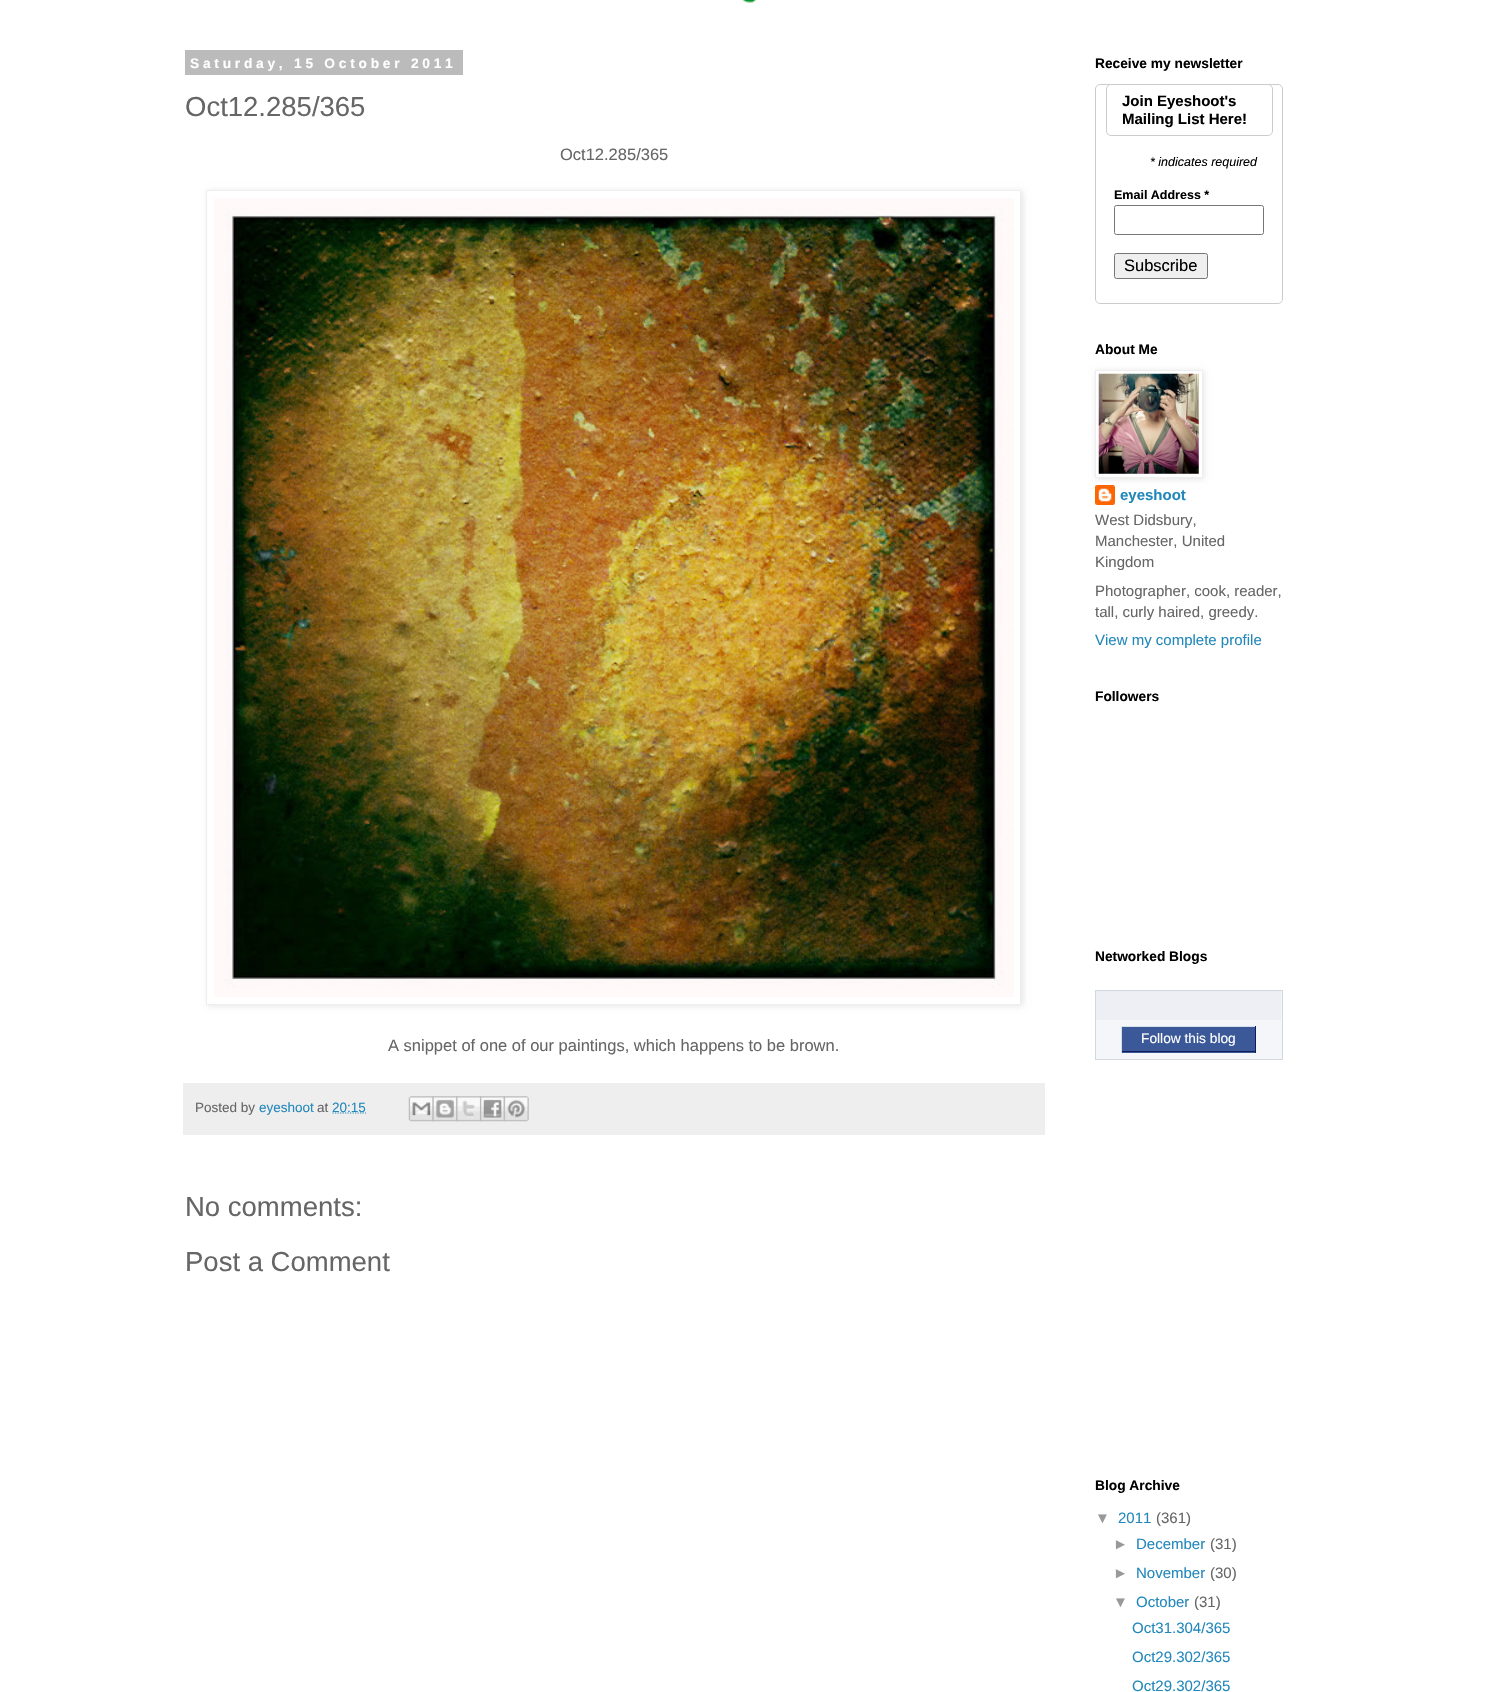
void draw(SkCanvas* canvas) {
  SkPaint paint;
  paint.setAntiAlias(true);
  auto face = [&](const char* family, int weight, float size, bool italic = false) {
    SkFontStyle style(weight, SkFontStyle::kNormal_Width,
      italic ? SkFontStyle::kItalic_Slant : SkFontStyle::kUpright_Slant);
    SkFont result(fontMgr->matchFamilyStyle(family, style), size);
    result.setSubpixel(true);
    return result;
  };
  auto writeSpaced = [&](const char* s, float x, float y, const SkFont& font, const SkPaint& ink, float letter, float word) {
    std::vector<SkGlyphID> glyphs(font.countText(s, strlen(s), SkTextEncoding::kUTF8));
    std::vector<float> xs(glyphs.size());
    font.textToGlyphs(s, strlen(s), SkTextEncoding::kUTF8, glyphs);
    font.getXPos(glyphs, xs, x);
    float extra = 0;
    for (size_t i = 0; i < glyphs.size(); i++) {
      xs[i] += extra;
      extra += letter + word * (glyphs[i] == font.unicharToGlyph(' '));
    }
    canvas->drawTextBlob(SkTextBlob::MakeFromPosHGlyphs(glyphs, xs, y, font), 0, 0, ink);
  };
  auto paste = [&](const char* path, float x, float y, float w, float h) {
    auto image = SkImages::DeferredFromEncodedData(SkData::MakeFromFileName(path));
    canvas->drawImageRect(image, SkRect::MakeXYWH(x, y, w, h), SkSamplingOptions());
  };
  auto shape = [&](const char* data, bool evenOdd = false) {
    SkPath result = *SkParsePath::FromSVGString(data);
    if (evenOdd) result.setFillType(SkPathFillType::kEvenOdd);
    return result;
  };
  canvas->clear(0xffffffff);
  paste("img/1.png", 742, 0, 15, 3);
  paint.setColor(0xffbbbbbb);
  canvas->drawRect(SkRect::MakeXYWH(185, 50, 278, 25), paint);
  paint.setColor(0x1a000000);
  paint.setMaskFilter(SkMaskFilter::MakeBlur(kNormal_SkBlurStyle, 3));
  canvas->drawRect(SkRect::MakeXYWH(208, 191, 815, 815), paint);
  paint.setMaskFilter(nullptr);
  paint.setColor(0xffffffff);
  canvas->drawRect(SkRect::MakeXYWH(206.5f, 190.5f, 814, 814), paint);
  paint.setStroke(true);
  paint.setStrokeWidth(1);
  paint.setColor(0xffeeeeee);
  canvas->drawRect(SkRect::MakeXYWH(206.5f, 190.5f, 814, 814), paint);
  paste("img/2.png", 214, 198, 800, 799);
  paint.setStroke(false);
  canvas->drawRect(SkRect::MakeXYWH(183, 1083, 862, 52), paint);
  paint.setStroke(true);
  paint.setStrokeWidth(1.2f);
  paint.setColor(0xff2288bb);
  paint.setPathEffect(SkDashPathEffect::Make({{1.25f, 1.25f}}, 0));
  canvas->drawPath(shape("M332.5 1113H366"), paint);
  paint.setPathEffect(nullptr);
  paste("img/3.png", 408, 1096, 26, 26);
  paste("img/4.png", 432, 1096, 26, 26);
  paste("img/5.png", 456, 1096, 26, 26);
  paste("img/6.png", 480, 1096, 25, 26);
  paste("img/7.png", 503, 1096, 26, 26);
  paint.setStrokeWidth(1);
  paint.setColor(0xffcccccc);
  canvas->drawRoundRect(SkRect::MakeXYWH(1095.5f, 84.5f, 187, 219), 4.5f, 4.5f, paint);
  paint.setStroke(false);
  paint.setColor(0xffffffff);
  canvas->drawRoundRect(SkRect::MakeXYWH(1106.5f, 84.5f, 166, 51), 4.5f, 4.5f, paint);
  paint.setStroke(true);
  paint.setColor(0xffcccccc);
  canvas->drawRoundRect(SkRect::MakeXYWH(1106.5f, 84.5f, 166, 51), 4.5f, 4.5f, paint);
  paint.setColor(0xff767676);
  canvas->drawRoundRect(SkRect::MakeXYWH(1114.5f, 205.5f, 149, 29), 2, 2, paint);
  paint.setStroke(false);
  paint.setColor(0xffefefef);
  canvas->drawRoundRect(SkRect::MakeXYWH(1114.5f, 253.5f, 93, 25), 2, 2, paint);
  paint.setStroke(true);
  paint.setColor(0xff767676);
  canvas->drawRoundRect(SkRect::MakeXYWH(1114.5f, 253.5f, 93, 25), 2, 2, paint);
  paste("img/9.png", 1095, 485, 20, 20);
  paint.setStroke(false);
  paint.setColor(0x1a000000);
  paint.setMaskFilter(SkMaskFilter::MakeBlur(kNormal_SkBlurStyle, 3));
  canvas->drawRect(SkRect::MakeXYWH(1096, 371, 108, 108), paint);
  paint.setMaskFilter(nullptr);
  paint.setColor(0xffffffff);
  canvas->drawRect(SkRect::MakeXYWH(1095.5f, 370.5f, 107, 107), paint);
  paint.setStroke(true);
  paint.setColor(0xffeeeeee);
  canvas->drawRect(SkRect::MakeXYWH(1095.5f, 370.5f, 107, 107), paint);
  paste("img/8.png", 1098, 373, 101, 101);
  paint.setStroke(false);
  paint.setColor(0xfff5f6f9);
  canvas->drawRect(SkRect::MakeXYWH(1095.5f, 990.5f, 187, 69), paint);
  paint.setStroke(true);
  paint.setColor(0xffd1d7df);
  canvas->drawRect(SkRect::MakeXYWH(1095.5f, 990.5f, 187, 69), paint);
  paint.setStroke(false);
  {
    const struct { float x, y, w, h; SkColor color; } items[] = {
      {1096, 991, 185, 29, 0xffedeff4},
      {1122, 1027, 133, 26, 0xff3b5998},
      {1121, 1026, 135, 1, 0xffd9dfea},
      {1255, 1026, 1, 27, 0xff0e1f5b},
      {1121, 1051, 135, 1, 0xff0e1f5b},
      {1121, 1026, 1, 27, 0xffd9dfea},
    };
    for (auto [x, y, w, h, color] : items) {
      paint.setColor(color);
      canvas->drawRect(SkRect::MakeXYWH(x, y, w, h), paint);
    }
  }
  auto f0 = face("Liberation Sans", 700, 13.75f);
  paint.setColor(0xffffffff);
  writeSpaced("Saturday, 15 October 2011", 190, 68, f0, paint, 3.75f, 0);
  auto f1 = face("Liberation Sans", 400, 27.5f);
  paint.setColor(0xff666666);
  canvas->drawString("Oct12.285/365", 185, 116, f1, paint);
  auto f2 = face("Liberation Sans", 400, 16.5f);
  canvas->drawString("Oct12.285/365", 560, 160, f2, paint);
  canvas->drawString("A snippet of one of our paintings, which happens to be brown.", 388, 1051, f2, paint);
  auto f3 = face("Liberation Sans", 400, 13.5f);
  canvas->drawString("Posted by", 195, 1112, f3, paint);
  paint.setColor(0xff2288bb);
  canvas->drawString("eyeshoot", 259, 1112, f3, paint);
  paint.setColor(0xff666666);
  canvas->drawString("at", 317, 1112, f3, paint);
  paint.setColor(0xff2288bb);
  canvas->drawString("20:15", 332, 1112, f3, paint);
  paint.setColor(0xff666666);
  canvas->drawString("No comments:", 185, 1216, f1, paint);
  canvas->drawString("Post a Comment", 185, 1271, f1, paint);
  paint.setColor(0xff000000);
  canvas->drawString("Receive my newsletter", 1095, 68, f0, paint);
  auto f4 = face("Liberation Sans", 700, 15);
  canvas->drawString("Join Eyeshoot's", 1122, 106, f4, paint);
  canvas->drawString("Mailing List Here!", 1122, 124, f4, paint);
  auto f5 = face("Liberation Sans", 400, 12.5f, true);
  canvas->drawString("* indicates required", 1150, 166, f5, paint);
  auto f6 = face("Liberation Sans", 700, 12.5f);
  canvas->drawString("Email Address *", 1114, 199, f6, paint);
  canvas->drawString("Subscribe", 1124, 271, f2, paint);
  canvas->drawString("About Me", 1095, 354, f0, paint);
  paint.setColor(0xff2288bb);
  canvas->drawString("eyeshoot", 1120, 500, f4, paint);
  auto f7 = face("Liberation Sans", 400, 15);
  paint.setColor(0xff666666);
  {
    const struct { const char* s; float x, y; } items[] = {
      {"West Didsbury,", 1095, 525},
      {"Manchester, United", 1095, 546},
      {"Kingdom", 1095, 567},
      {"Photographer, cook, reader,", 1095, 596},
      {"tall, curly haired, greedy.", 1095, 617},
    };
    for (auto [s, x, y] : items) {
      canvas->drawString(s, x, y, f7, paint);
    }
  }
  paint.setColor(0xff2288bb);
  canvas->drawString("View my complete profile", 1095, 645, f7, paint);
  paint.setColor(0xff000000);
  canvas->drawString("Followers", 1095, 701, f0, paint);
  canvas->drawString("Networked Blogs", 1095, 961, f0, paint);
  auto f8 = face("Liberation Sans", 400, 13.75f);
  paint.setColor(0xffffffff);
  canvas->drawString("Follow this blog", 1141, 1043, f8, paint);
  paint.setColor(0xff000000);
  canvas->drawString("Blog Archive", 1095, 1490, f0, paint);
  paint.setColor(0xff999999);
  canvas->drawString("▼", 1095, 1523, f7, paint);
  paint.setColor(0xff2288bb);
  canvas->drawString("2011", 1118, 1523, f7, paint);
  paint.setColor(0xff666666);
  canvas->drawString("(361)", 1156, 1523, f7, paint);
  paint.setColor(0xff999999);
  canvas->drawString("►", 1113, 1549, f7, paint);
  paint.setColor(0xff2288bb);
  canvas->drawString("December", 1136, 1549, f7, paint);
  paint.setColor(0xff666666);
  canvas->drawString("(31)", 1210, 1549, f7, paint);
  paint.setColor(0xff999999);
  canvas->drawString("►", 1113, 1578, f7, paint);
  paint.setColor(0xff2288bb);
  canvas->drawString("November", 1136, 1578, f7, paint);
  paint.setColor(0xff666666);
  canvas->drawString("(30)", 1210, 1578, f7, paint);
  paint.setColor(0xff999999);
  canvas->drawString("▼", 1113, 1607, f7, paint);
  paint.setColor(0xff2288bb);
  canvas->drawString("October", 1136, 1607, f7, paint);
  paint.setColor(0xff666666);
  canvas->drawString("(31)", 1194, 1607, f7, paint);
  paint.setColor(0xff2288bb);
  {
    const struct { const char* s; float x, y; } items[] = {
      {"Oct31.304/365", 1132, 1633},
      {"Oct29.302/365", 1132, 1662},
      {"Oct29.302/365", 1132, 1691},
    };
    for (auto [s, x, y] : items) {
      canvas->drawString(s, x, y, f7, paint);
    }
  }
}
